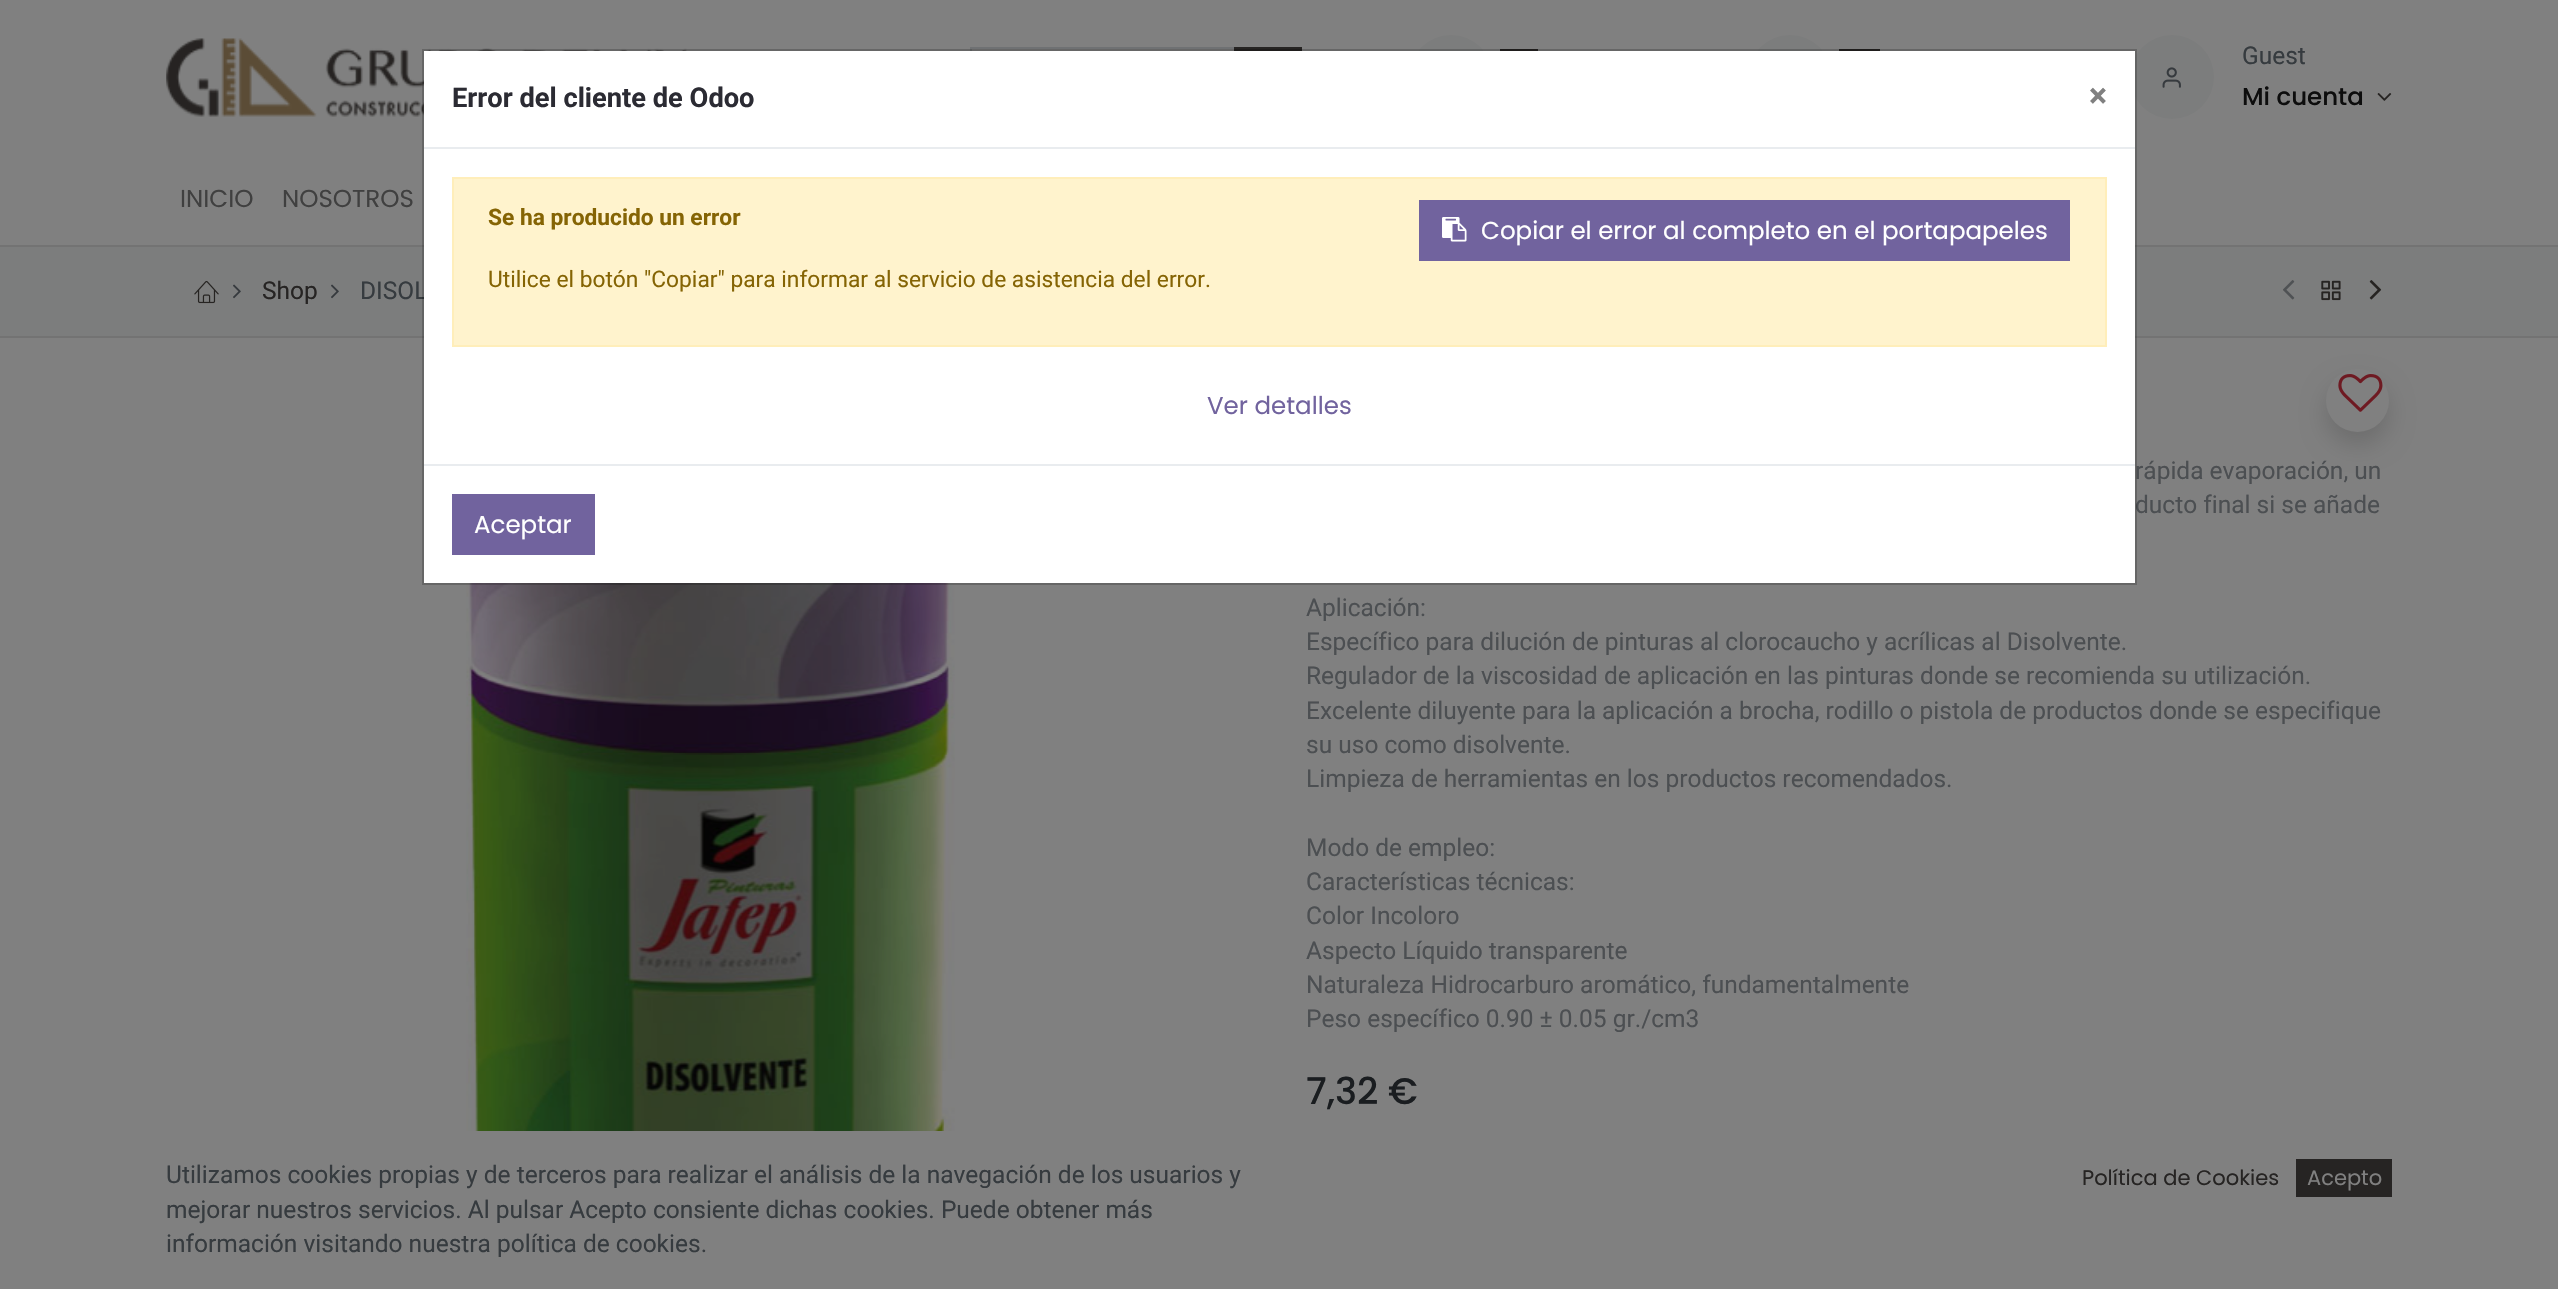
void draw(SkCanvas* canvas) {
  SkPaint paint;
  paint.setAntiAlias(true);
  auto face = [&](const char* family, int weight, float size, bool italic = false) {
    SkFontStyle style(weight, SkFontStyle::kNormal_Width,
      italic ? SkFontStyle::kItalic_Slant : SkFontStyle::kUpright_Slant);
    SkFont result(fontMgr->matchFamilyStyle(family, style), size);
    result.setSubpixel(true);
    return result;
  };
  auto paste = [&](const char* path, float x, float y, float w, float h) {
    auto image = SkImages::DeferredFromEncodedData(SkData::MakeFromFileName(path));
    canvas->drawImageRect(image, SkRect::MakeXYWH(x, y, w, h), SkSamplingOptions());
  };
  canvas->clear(0xff808080);
  paste("img/1.png", 166, 38, 521, 79);
  paint.setStroke(true);
  paint.setStrokeWidth(2);
  paint.setColor(0xff6f7173);
  canvas->drawRect(SkRect::MakeXYWH(971, 48, 264, 58), paint);
  paint.setStroke(false);
  paint.setColor(0xff262423);
  canvas->drawRect(SkRect::MakeXYWH(1234, 47, 68, 4), paint);
  paint.setColor(0xff7c7d7d);
  canvas->drawCircle(1451, 77, 42, paint);
  paint.setColor(0xff262423);
  canvas->drawRect(SkRect::MakeXYWH(1500, 49, 38, 2), paint);
  paint.setColor(0xff7c7d7d);
  canvas->drawCircle(1790, 77, 42, paint);
  paint.setColor(0xff262423);
  canvas->drawRect(SkRect::MakeXYWH(1839, 49, 41, 2), paint);
  paint.setColor(0xff7c7d7d);
  canvas->drawCircle(2172, 77, 42, paint);
  paste("img/2.png", 2162, 67, 19, 21);
  paste("img/3.png", 2377, 93, 15, 8);
  {
    const struct { float x, y, w, h; SkColor color; } items[] = {
      {0, 247, 2558, 89, 0xff7c7d7d},
      {0, 245, 2558, 2, 0xff737373},
      {0, 336, 2558, 2, 0xff737373},
    };
    for (auto [x, y, w, h, color] : items) {
      paint.setColor(color);
      canvas->drawRect(SkRect::MakeXYWH(x, y, w, h), paint);
    }
  }
  paste("img/4.png", 194, 280, 25, 24);
  paste("img/5.png", 233, 284, 8, 15);
  paste("img/5.png", 331, 284, 8, 15);
  paste("img/6.png", 2283, 280, 12, 20);
  paste("img/7.png", 2321, 280, 20, 21);
  paste("img/8.png", 2369, 280, 13, 20);
  paste("img/9.png", 466, 583, 489, 548);
  paint.setColor(0x26000000);
  paint.setMaskFilter(SkMaskFilter::MakeBlur(kNormal_SkBlurStyle, 12.5f));
  canvas->drawRoundRect(SkRect::MakeXYWH(2326, 382, 63, 63), 31.5f, 31.5f, paint);
  paint.setMaskFilter(nullptr);
  paint.setColor(0xff808080);
  canvas->drawCircle(2357.5f, 400.5f, 31.5f, paint);
  paste("img/10.png", 2338, 374, 45, 38);
  paint.setColor(0xff262423);
  canvas->drawRect(SkRect::MakeXYWH(2296, 1159, 96, 38), paint);
  auto f0 = face("Roboto", 400, 24.5f);
  paint.setColor(0xff363b3f);
  canvas->drawString("Guest", 2242, 64, f0, paint);
  auto f1 = face("Poppins", 500, 24.5f);
  paint.setColor(0xff0d0d0d);
  canvas->drawString("Mi cuenta", 2242, 105, f1, paint);
  auto f2 = face("Poppins", 400, 24.5f);
  paint.setColor(0xff404040);
  canvas->drawString("INICIO", 180, 207, f2, paint);
  canvas->drawString("NOSOTROS", 282, 207, f2, paint);
  paint.setColor(0xff262423);
  canvas->drawString("Shop", 262, 299, f0, paint);
  paint.setColor(0xff363b3f);
  canvas->drawString("DISOL", 360, 299, f0, paint);
  paint.setColor(0xff4c4f52);
  {
    const struct { const char* s; float x, y; } items[] = {
      {"rápida evaporación, un", 2135, 479},
      {"ducto final si se añade", 2135, 513},
      {"Aplicación:", 1306, 616},
      {"Específico para dilución de pinturas al clorocaucho y acrílicas al Disolvente.", 1306, 650},
      {"Regulador de la viscosidad de aplicación en las pinturas donde se recomienda su utilización.", 1306, 684},
      {"Excelente diluyente para la aplicación a brocha, rodillo o pistola de productos donde se especifique", 1306, 719},
      {"su uso como disolvente.", 1306, 753},
      {"Limpieza de herramientas en los productos recomendados.", 1306, 787},
      {"Modo de empleo:", 1306, 856},
      {"Características técnicas:", 1306, 890},
      {"Color Incoloro", 1306, 924},
      {"Aspecto Líquido transparente", 1306, 959},
      {"Naturaleza Hidrocarburo aromático, fundamentalmente", 1306, 993},
      {"Peso específico 0.90 ± 0.05 gr./cm3", 1306, 1027},
    };
    for (auto [s, x, y] : items) {
      canvas->drawString(s, x, y, f0, paint);
    }
  }
  auto f3 = face("Poppins", 500, 37);
  paint.setColor(0xff1a1d20);
  canvas->drawString("7,32 €", 1306, 1104, f3, paint);
  paint.setColor(0xff363b3f);
  {
    const struct { const char* s; float x, y; } items[] = {
      {"Utilizamos cookies propias y de terceros para realizar el análisis de la navegación de los usuarios y", 166, 1183},
      {"mejorar nuestros servicios. Al pulsar Acepto consiente dichas cookies. Puede obtener más", 166, 1218},
      {"información visitando nuestra política de cookies.", 166, 1252},
    };
    for (auto [s, x, y] : items) {
      canvas->drawString(s, x, y, f0, paint);
    }
  }
  auto f4 = face("Poppins", 400, 21);
  paint.setColor(0xff262423);
  canvas->drawString("Política de Cookies", 2082, 1185, f4, paint);
  paint.setColor(0xff808080);
  canvas->drawString("Acepto", 2307, 1185, f4, paint);
  paint.setColor(0xffffffff);
  canvas->drawRect(SkRect::MakeXYWH(424, 51, 1711, 532), paint);
  paint.setStroke(true);
  paint.setColor(0x33000000);
  canvas->drawRect(SkRect::MakeXYWH(423, 50, 1713, 534), paint);
  paint.setStroke(false);
  paint.setColor(0xffe9ecef);
  canvas->drawRect(SkRect::MakeXYWH(424, 147, 1711, 2), paint);
  auto f5 = face("Roboto", 700, 27.25f);
  paint.setColor(0xff2b2b33);
  canvas->drawString("Error del cliente de Odoo", 452, 107, f5, paint);
  auto f6 = face("Roboto", 700, 34);
  paint.setColor(0xff808080);
  canvas->drawString("×", 2089, 107, f6, paint);
  paint.setColor(0xfffff3cd);
  canvas->drawRect(SkRect::MakeXYWH(453, 178, 1653, 168), paint);
  paint.setStroke(true);
  paint.setColor(0xffffeeba);
  canvas->drawRect(SkRect::MakeXYWH(453, 178, 1653, 168), paint);
  auto f7 = face("Roboto", 700, 22.75f);
  paint.setStroke(false);
  paint.setColor(0xff856404);
  canvas->drawString("Se ha producido un error", 488, 225, f7, paint);
  paint.setColor(0xff71639e);
  canvas->drawRect(SkRect::MakeXYWH(1419, 200, 651, 61), paint);
  paste("img/11.png", 1442, 217, 25, 25);
  paint.setColor(0xffffffff);
  canvas->drawString("Copiar el error al completo en el portapapeles", 1481, 239, f2, paint);
  auto f8 = face("Roboto", 400, 22.75f);
  paint.setColor(0xff856404);
  canvas->drawString("Utilice el botón \"Copiar\" para informar al servicio de asistencia del error.", 488, 287, f8, paint);
  paint.setColor(0xff71639e);
  canvas->drawString("Ver detalles", 1207, 414, f2, paint);
  paint.setColor(0xffe9ecef);
  canvas->drawRect(SkRect::MakeXYWH(424, 464, 1711, 2), paint);
  paint.setColor(0xff71639e);
  canvas->drawRect(SkRect::MakeXYWH(452, 494, 143, 61), paint);
  paint.setColor(0xffffffff);
  canvas->drawString("Aceptar", 474, 533, f2, paint);
}
